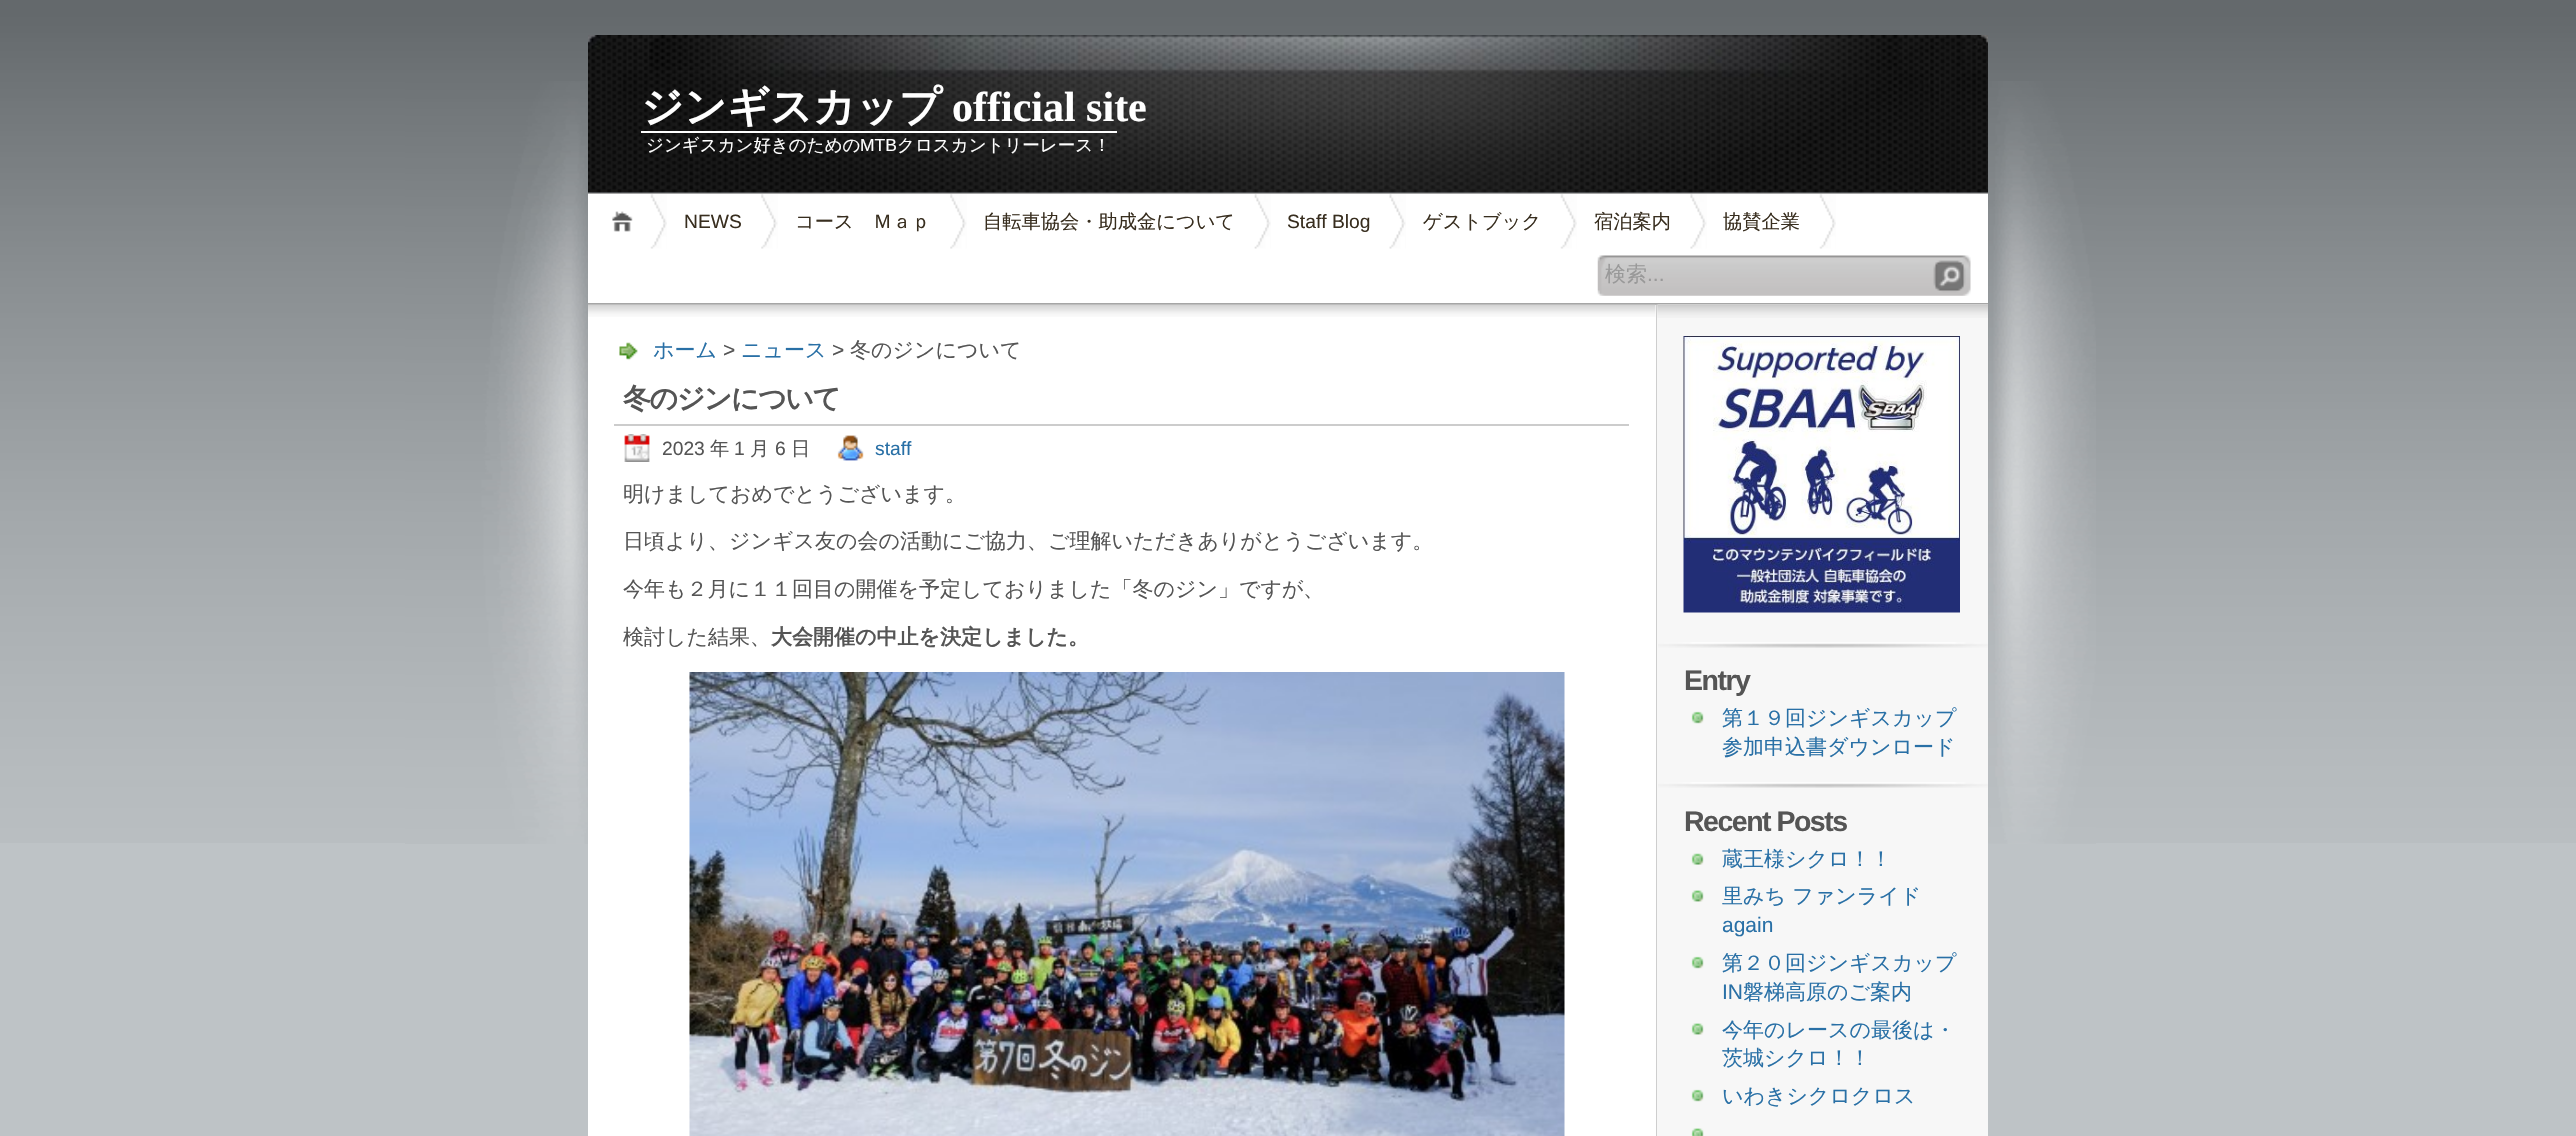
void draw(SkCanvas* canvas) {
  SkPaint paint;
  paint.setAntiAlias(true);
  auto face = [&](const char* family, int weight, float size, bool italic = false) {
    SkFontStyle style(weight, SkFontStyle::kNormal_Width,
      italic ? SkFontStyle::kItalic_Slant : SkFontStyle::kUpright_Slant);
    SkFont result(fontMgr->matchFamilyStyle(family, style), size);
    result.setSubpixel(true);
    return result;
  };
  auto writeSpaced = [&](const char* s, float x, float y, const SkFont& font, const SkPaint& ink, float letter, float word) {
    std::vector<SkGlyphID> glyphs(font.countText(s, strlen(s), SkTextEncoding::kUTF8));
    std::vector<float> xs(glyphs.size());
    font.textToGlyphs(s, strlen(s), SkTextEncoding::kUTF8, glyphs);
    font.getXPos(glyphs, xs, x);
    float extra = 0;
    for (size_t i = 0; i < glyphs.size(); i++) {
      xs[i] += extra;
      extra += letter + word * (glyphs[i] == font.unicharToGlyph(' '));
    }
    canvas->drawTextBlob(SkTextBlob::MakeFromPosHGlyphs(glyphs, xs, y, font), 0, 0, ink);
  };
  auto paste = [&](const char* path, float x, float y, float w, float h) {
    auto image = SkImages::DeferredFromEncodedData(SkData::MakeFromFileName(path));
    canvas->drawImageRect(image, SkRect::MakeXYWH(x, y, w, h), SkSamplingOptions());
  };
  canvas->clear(0xffbec3c6);
  paste("img/1.png", 0, 0, 2576, 843);
  paste("img/2.png", 405, 81, 1691, 763);
  paste("img/3.png", 588, 35, 1400, 158);
  {
    const struct { float x, y, w, h; SkColor color; } items[] = {
      {588, 193, 1400, 1, 0xffa6a6a6},
      {641, 131, 476, 2, 0xffffffff},
      {588, 194, 1400, 109, 0xffffffff},
      {588, 303, 1400, 2, 0xffa6a6a6},
    };
    for (auto [x, y, w, h, color] : items) {
      paint.setColor(color);
      canvas->drawRect(SkRect::MakeXYWH(x, y, w, h), paint);
    }
  }
  paste("img/4.png", 612, 211, 21, 21);
  paste("img/5.png", 650, 194, 17, 55);
  paste("img/6.png", 761, 194, 17, 55);
  paste("img/7.png", 950, 194, 17, 55);
  paste("img/8.png", 1254, 194, 17, 55);
  paste("img/9.png", 1389, 194, 17, 55);
  paste("img/10.png", 1560, 194, 17, 55);
  paste("img/11.png", 1690, 194, 17, 55);
  paste("img/10.png", 1819, 194, 17, 55);
  paste("img/12.png", 1597, 255, 374, 41);
  paste("img/13.png", 1655, 304, 333, 832);
  paint.setColor(0xffffffff);
  canvas->drawRect(SkRect::MakeXYWH(588, 305, 1068, 831), paint);
  paste("img/14.png", 588, 304, 1068, 13);
  paste("img/15.png", 619, 342, 19, 19);
  paint.setColor(0xffcccccc);
  canvas->drawRect(SkRect::MakeXYWH(614, 424, 1015, 2), paint);
  paste("img/16.png", 624, 434, 26, 28);
  paste("img/17.png", 837, 435, 27, 26);
  paste("img/18.png", 689, 672, 876, 464);
  paint.setColor(0xfff7f7f7);
  canvas->drawRect(SkRect::MakeXYWH(1657, 305, 1, 831), paint);
  paste("img/19.png", 1657, 305, 331, 13);
  paste("img/20.png", 1658, 642, 330, 6);
  paste("img/21.png", 1683, 336, 277, 277);
  paste("img/20.png", 1658, 782, 330, 6);
  paste("img/22.png", 1691, 711, 13, 13);
  paste("img/23.png", 1691, 853, 13, 12);
  paste("img/24.png", 1691, 890, 13, 12);
  paste("img/22.png", 1691, 956, 13, 13);
  paste("img/24.png", 1691, 1023, 13, 12);
  paste("img/22.png", 1691, 1089, 13, 13);
  paste("img/25.png", 1691, 1128, 13, 8);
  auto f0 = face("WenQuanYi Zen Hei", 700, 42);
  paint.setColor(0xffffffff);
  canvas->drawString("ジンギスカップ", 641, 121, f0, paint);
  auto f1 = face("Liberation Serif", 700, 42);
  canvas->drawString("official site", 952, 121, f1, paint);
  auto f2 = face("WenQuanYi Zen Hei", 500, 17.5f);
  canvas->drawString("ジンギスカン好きのための", 646, 151, f2, paint);
  auto f3 = face("Liberation Sans", 400, 17.5f);
  canvas->drawString("MTB", 860, 151, f3, paint);
  canvas->drawString("クロスカントリーレース！", 897, 151, f2, paint);
  auto f4 = face("Liberation Sans", 400, 19.25f);
  paint.setColor(0xff382e1f);
  canvas->drawString("NEWS", 684, 228, f4, paint);
  auto f5 = face("WenQuanYi Zen Hei", 500, 19.25f);
  canvas->drawString("コース　Ｍａｐ", 795, 228, f5, paint);
  canvas->drawString("自転車協会・助成金について", 983, 228, f5, paint);
  canvas->drawString("Staff Blog", 1287, 228, f4, paint);
  {
    const struct { const char* s; float x, y; } items[] = {
      {"ゲストブック", 1423, 228},
      {"宿泊案内", 1594, 228},
      {"協賛企業", 1723, 228},
    };
    for (auto [s, x, y] : items) {
      canvas->drawString(s, x, y, f5, paint);
    }
  }
  auto f6 = face("WenQuanYi Zen Hei", 500, 21);
  paint.setColor(0xff999999);
  canvas->drawString("検索", 1605, 281, f6, paint);
  auto f7 = face("Liberation Sans", 400, 21);
  canvas->drawString("...", 1647, 281, f7, paint);
  paint.setColor(0xff2970a6);
  canvas->drawString("ホーム", 653, 357, f6, paint);
  paint.setColor(0xff555555);
  canvas->drawString(">", 723, 357, f7, paint);
  paint.setColor(0xff2970a6);
  canvas->drawString("ニュース", 741, 357, f6, paint);
  paint.setColor(0xff555555);
  canvas->drawString(">", 832, 357, f7, paint);
  canvas->drawString("冬のジンについて", 850, 357, f6, paint);
  auto f8 = face("WenQuanYi Zen Hei", 700, 28);
  writeSpaced("冬のジンについて", 623, 408, f8, paint, -1.5f, 0);
  canvas->drawString("2023", 662, 455, f4, paint);
  canvas->drawString("年", 710, 455, f5, paint);
  canvas->drawString("1", 734, 455, f4, paint);
  canvas->drawString("月", 750, 455, f5, paint);
  canvas->drawString("6", 775, 455, f4, paint);
  canvas->drawString("日", 791, 455, f5, paint);
  paint.setColor(0xff2970a6);
  canvas->drawString("staff", 875, 455, f4, paint);
  paint.setColor(0xff555555);
  {
    const struct { const char* s; float x, y; } items[] = {
      {"明けましておめでとうございます。", 623, 501},
      {"日頃より、ジンギス友の会の活動にご協力、ご理解いただきありがとうございます。", 623, 548},
      {"今年も２月に１１回目の開催を予定しておりました「冬のジン」ですが、", 623, 596},
      {"検討した結果、", 623, 644},
    };
    for (auto [s, x, y] : items) {
      canvas->drawString(s, x, y, f6, paint);
    }
  }
  auto f9 = face("WenQuanYi Zen Hei", 700, 21);
  canvas->drawString("大会開催の中止を決定しました。", 771, 644, f9, paint);
  auto f10 = face("Liberation Sans", 700, 28.5f);
  writeSpaced("Entry", 1684, 690, f10, paint, -1.5f, 0);
  paint.setColor(0xff2970a6);
  canvas->drawString("第１９回ジンギスカップ", 1722, 725, f6, paint);
  canvas->drawString("参加申込書ダウンロード", 1722, 754, f6, paint);
  paint.setColor(0xff555555);
  writeSpaced("Recent Posts", 1684, 831, f10, paint, -1.5f, 0);
  paint.setColor(0xff2970a6);
  canvas->drawString("蔵王様シクロ！！", 1722, 866, f6, paint);
  canvas->drawString("里みち ファンライド", 1722, 903, f6, paint);
  canvas->drawString("again", 1722, 932, f7, paint);
  canvas->drawString("第２０回ジンギスカップ", 1722, 970, f6, paint);
  canvas->drawString("IN", 1722, 999, f7, paint);
  {
    const struct { const char* s; float x, y; } items[] = {
      {"磐梯高原のご案内", 1743, 999},
      {"今年のレースの最後は・", 1722, 1037},
      {"茨城シクロ！！", 1722, 1065},
      {"いわきシクロクロス", 1722, 1103},
    };
    for (auto [s, x, y] : items) {
      canvas->drawString(s, x, y, f6, paint);
    }
  }
}
